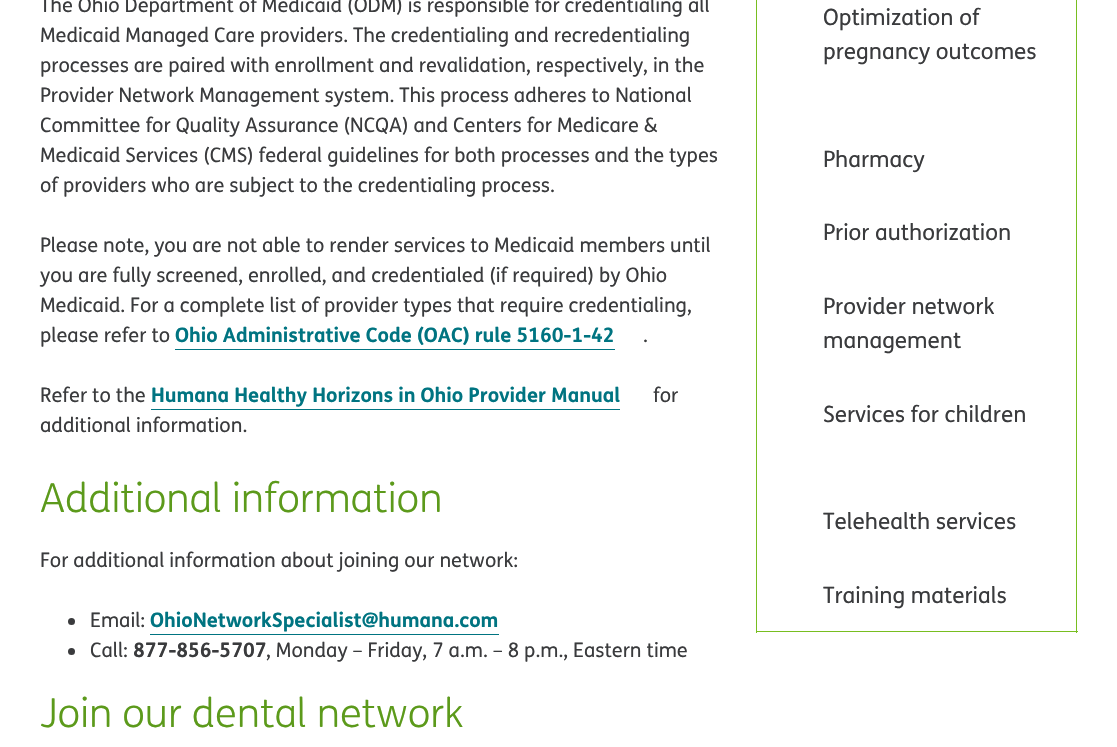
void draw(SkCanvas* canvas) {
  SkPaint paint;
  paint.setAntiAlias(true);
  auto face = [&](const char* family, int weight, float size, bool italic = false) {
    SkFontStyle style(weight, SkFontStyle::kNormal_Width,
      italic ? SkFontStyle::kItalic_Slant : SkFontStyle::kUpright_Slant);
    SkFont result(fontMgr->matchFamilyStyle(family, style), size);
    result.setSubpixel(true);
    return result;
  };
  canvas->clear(0xffffffff);
  paint.setColor(0xff007481);
  canvas->drawRect(SkRect::MakeXYWH(175, 349, 440, 1), paint);
  canvas->drawRect(SkRect::MakeXYWH(151, 409, 469, 1), paint);
  paint.setColor(0xff3a3b3d);
  canvas->drawCircle(71.5f, 621.5f, 3.5f, paint);
  paint.setColor(0xff007481);
  canvas->drawRect(SkRect::MakeXYWH(150, 634, 349, 1), paint);
  paint.setColor(0xff3a3b3d);
  canvas->drawCircle(71.5f, 651.5f, 3.5f, paint);
  {
    const struct { float x, y, w, h; SkColor color; } items[] = {
      {1076, 0, 1, 633, 0xff78be20},
      {756, 631, 322, 1, 0xff78be20},
      {756, 0, 1, 633, 0xff78be20},
    };
    for (auto [x, y, w, h, color] : items) {
      paint.setColor(color);
      canvas->drawRect(SkRect::MakeXYWH(x, y, w, h), paint);
    }
  }
  auto f0 = face("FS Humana", 400, 20);
  paint.setColor(0xff3a3b3d);
  {
    const struct { const char* s; float x, y; } items[] = {
      {"The Ohio Department of Medicaid (ODM) is responsible for credentialing all", 40, 12},
      {"Medicaid Managed Care providers. The credentialing and recredentialing", 40, 42},
      {"processes are paired with enrollment and revalidation, respectively, in the", 40, 72},
      {"Provider Network Management system. This process adheres to National", 40, 102},
      {"Committee for Quality Assurance (NCQA) and Centers for Medicare &", 40, 132},
      {"Medicaid Services (CMS) federal guidelines for both processes and the types", 40, 162},
      {"of providers who are subject to the credentialing process.", 40, 192},
      {"Please note, you are not able to render services to Medicaid members until", 40, 252},
      {"you are fully screened, enrolled, and credentialed (if required) by Ohio", 40, 282},
      {"Medicaid. For a complete list of provider types that require credentialing,", 40, 312},
      {"please refer to", 40, 342},
    };
    for (auto [s, x, y] : items) {
      canvas->drawString(s, x, y, f0, paint);
    }
  }
  auto f1 = face("FS Humana", 700, 20);
  paint.setColor(0xff007481);
  canvas->drawString("Ohio Administrative Code (OAC) rule 5160-1-42", 175, 342, f1, paint);
  paint.setColor(0xff3a3b3d);
  canvas->drawString(".", 643, 342, f0, paint);
  canvas->drawString("Refer to the", 40, 402, f0, paint);
  paint.setColor(0xff007481);
  canvas->drawString("Humana Healthy Horizons in Ohio Provider Manual", 151, 402, f1, paint);
  paint.setColor(0xff3a3b3d);
  canvas->drawString("for", 653, 402, f0, paint);
  canvas->drawString("additional information.", 40, 432, f0, paint);
  auto f2 = face("FS Humana", 300, 40);
  paint.setColor(0xff5c9a1b);
  canvas->drawString("Additional information", 40, 512, f2, paint);
  paint.setColor(0xff3a3b3d);
  canvas->drawString("For additional information about joining our network:", 40, 567, f0, paint);
  canvas->drawString("Email:", 90, 627, f0, paint);
  paint.setColor(0xff007481);
  canvas->drawString("OhioNetworkSpecialist@humana.com", 150, 627, f1, paint);
  paint.setColor(0xff3a3b3d);
  canvas->drawString("Call:", 90, 657, f0, paint);
  canvas->drawString("877-856-5707", 133, 657, f1, paint);
  canvas->drawString(", Monday – Friday, 7 a.m. – 8 p.m., Eastern time", 266, 657, f0, paint);
  paint.setColor(0xff5c9a1b);
  canvas->drawString("Join our dental network", 40, 727, f2, paint);
  auto f3 = face("FS Humana", 400, 22.5f);
  paint.setColor(0xff3a3b3d);
  {
    const struct { const char* s; float x, y; } items[] = {
      {"Optimization of", 823, 25},
      {"pregnancy outcomes", 823, 59},
      {"Pharmacy", 823, 167},
      {"Prior authorization", 823, 240},
      {"Provider network", 823, 314},
      {"management", 823, 348},
      {"Services for children", 823, 422},
      {"Telehealth services", 823, 529},
      {"Training materials", 823, 603},
    };
    for (auto [s, x, y] : items) {
      canvas->drawString(s, x, y, f3, paint);
    }
  }
}
